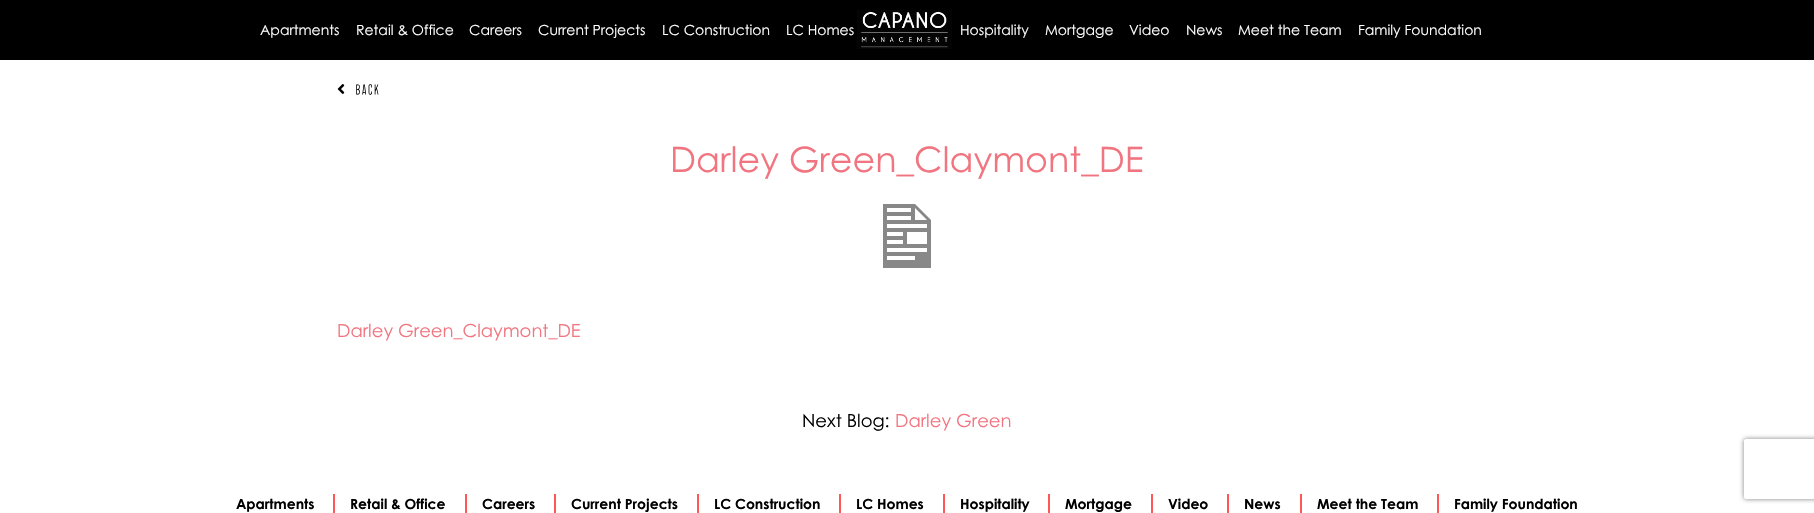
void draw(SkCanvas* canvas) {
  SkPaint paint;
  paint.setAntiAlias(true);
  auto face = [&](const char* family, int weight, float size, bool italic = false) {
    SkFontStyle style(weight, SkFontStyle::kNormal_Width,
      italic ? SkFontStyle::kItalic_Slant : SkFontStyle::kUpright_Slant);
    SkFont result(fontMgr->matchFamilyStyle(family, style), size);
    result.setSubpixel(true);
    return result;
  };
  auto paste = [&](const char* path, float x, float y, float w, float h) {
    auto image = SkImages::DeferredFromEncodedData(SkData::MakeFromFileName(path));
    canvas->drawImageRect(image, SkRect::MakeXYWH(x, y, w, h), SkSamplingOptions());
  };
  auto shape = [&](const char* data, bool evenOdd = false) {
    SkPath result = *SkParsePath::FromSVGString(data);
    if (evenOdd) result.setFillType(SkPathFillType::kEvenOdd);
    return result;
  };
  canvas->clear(0xffffffff);
  paint.setColor(0xff000000);
  canvas->drawRect(SkRect::MakeXYWH(0, 0, 1814, 60), paint);
  paste("img/1.png", 857, 10, 95, 39);
  paste("img/2.png", 337, 84, 8, 10);
  paste("img/3.png", 883, 204, 48, 64);
  {
    const struct { float x, y, w, h; SkColor color; } items[] = {
      {333, 494, 2, 19, 0xffff5656},
      {465, 494, 2, 19, 0xffff5656},
      {554, 494, 2, 19, 0xffff5656},
      {697, 494, 2, 19, 0xffff5656},
      {839, 494, 2, 19, 0xffff5656},
      {943, 494, 2, 19, 0xffff5656},
      {1048, 494, 2, 19, 0xffff5656},
      {1151, 494, 2, 19, 0xffff5656},
      {1227, 494, 2, 19, 0xffff5656},
      {1300, 494, 2, 19, 0xffff5656},
      {1437, 494, 2, 19, 0xffff5656},
    };
    for (auto [x, y, w, h, color] : items) {
      paint.setColor(color);
      canvas->drawRect(SkRect::MakeXYWH(x, y, w, h), paint);
    }
  }
  canvas->save();
  canvas->clipPath(shape("M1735 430H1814V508H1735ZM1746 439H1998C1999 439 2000 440 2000 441V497C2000 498 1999 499 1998 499H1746C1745 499 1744 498 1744 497V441C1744 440 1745 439 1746 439Z", true), true);
  paint.setColor(0xff808080);
  paint.setMaskFilter(SkMaskFilter::MakeBlur(kNormal_SkBlurStyle, 2.5f));
  canvas->drawRoundRect(SkRect::MakeXYWH(1744, 439, 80, 60), 2, 2, paint);
  paint.setMaskFilter(nullptr);
  canvas->restore();
  auto f0 = face("Century Gothic", 400, 14);
  paint.setColor(0xffffffff);
  {
    const struct { const char* s; float x, y; } items[] = {
      {"Apartments", 260, 35},
      {"Retail & Office", 356, 35},
      {"Careers", 469, 35},
      {"Current Projects", 538, 35},
      {"LC Construction", 662, 35},
      {"LC Homes", 786, 35},
      {"Hospitality", 960, 35},
      {"Mortgage", 1045, 35},
      {"Video", 1129, 35},
      {"News", 1186, 35},
      {"Meet the Team", 1238, 35},
      {"Family Foundation", 1358, 35},
    };
    for (auto [s, x, y] : items) {
      canvas->drawString(s, x, y, f0, paint);
    }
  }
  auto f1 = face("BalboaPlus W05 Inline", 700, 14);
  paint.setColor(0xff000000);
  canvas->drawString("BACK", 355, 95, f1, paint);
  auto f2 = face("Century Gothic", 400, 35);
  paint.setColor(0xfff17580);
  canvas->drawString("Darley Green_Claymont_DE", 670, 172, f2, paint);
  auto f3 = face("Century Gothic", 400, 18);
  canvas->drawString("Darley Green_Claymont_DE", 337, 337, f3, paint);
  paint.setColor(0xff000000);
  canvas->drawString("Next Blog:", 802, 427, f3, paint);
  paint.setColor(0xfff17580);
  canvas->drawString("Darley Green", 895, 427, f3, paint);
  auto f4 = face("Century Gothic", 700, 14);
  paint.setColor(0xff000000);
  {
    const struct { const char* s; float x, y; } items[] = {
      {"Apartments", 236, 509},
      {"Retail & Office", 350, 509},
      {"Careers", 482, 509},
      {"Current Projects", 571, 509},
      {"LC Construction", 714, 509},
      {"LC Homes", 856, 509},
      {"Hospitality", 960, 509},
      {"Mortgage", 1065, 509},
      {"Video", 1168, 509},
      {"News", 1244, 509},
      {"Meet the Team", 1317, 509},
      {"Family Foundation", 1454, 509},
    };
    for (auto [s, x, y] : items) {
      canvas->drawString(s, x, y, f4, paint);
    }
  }
}
